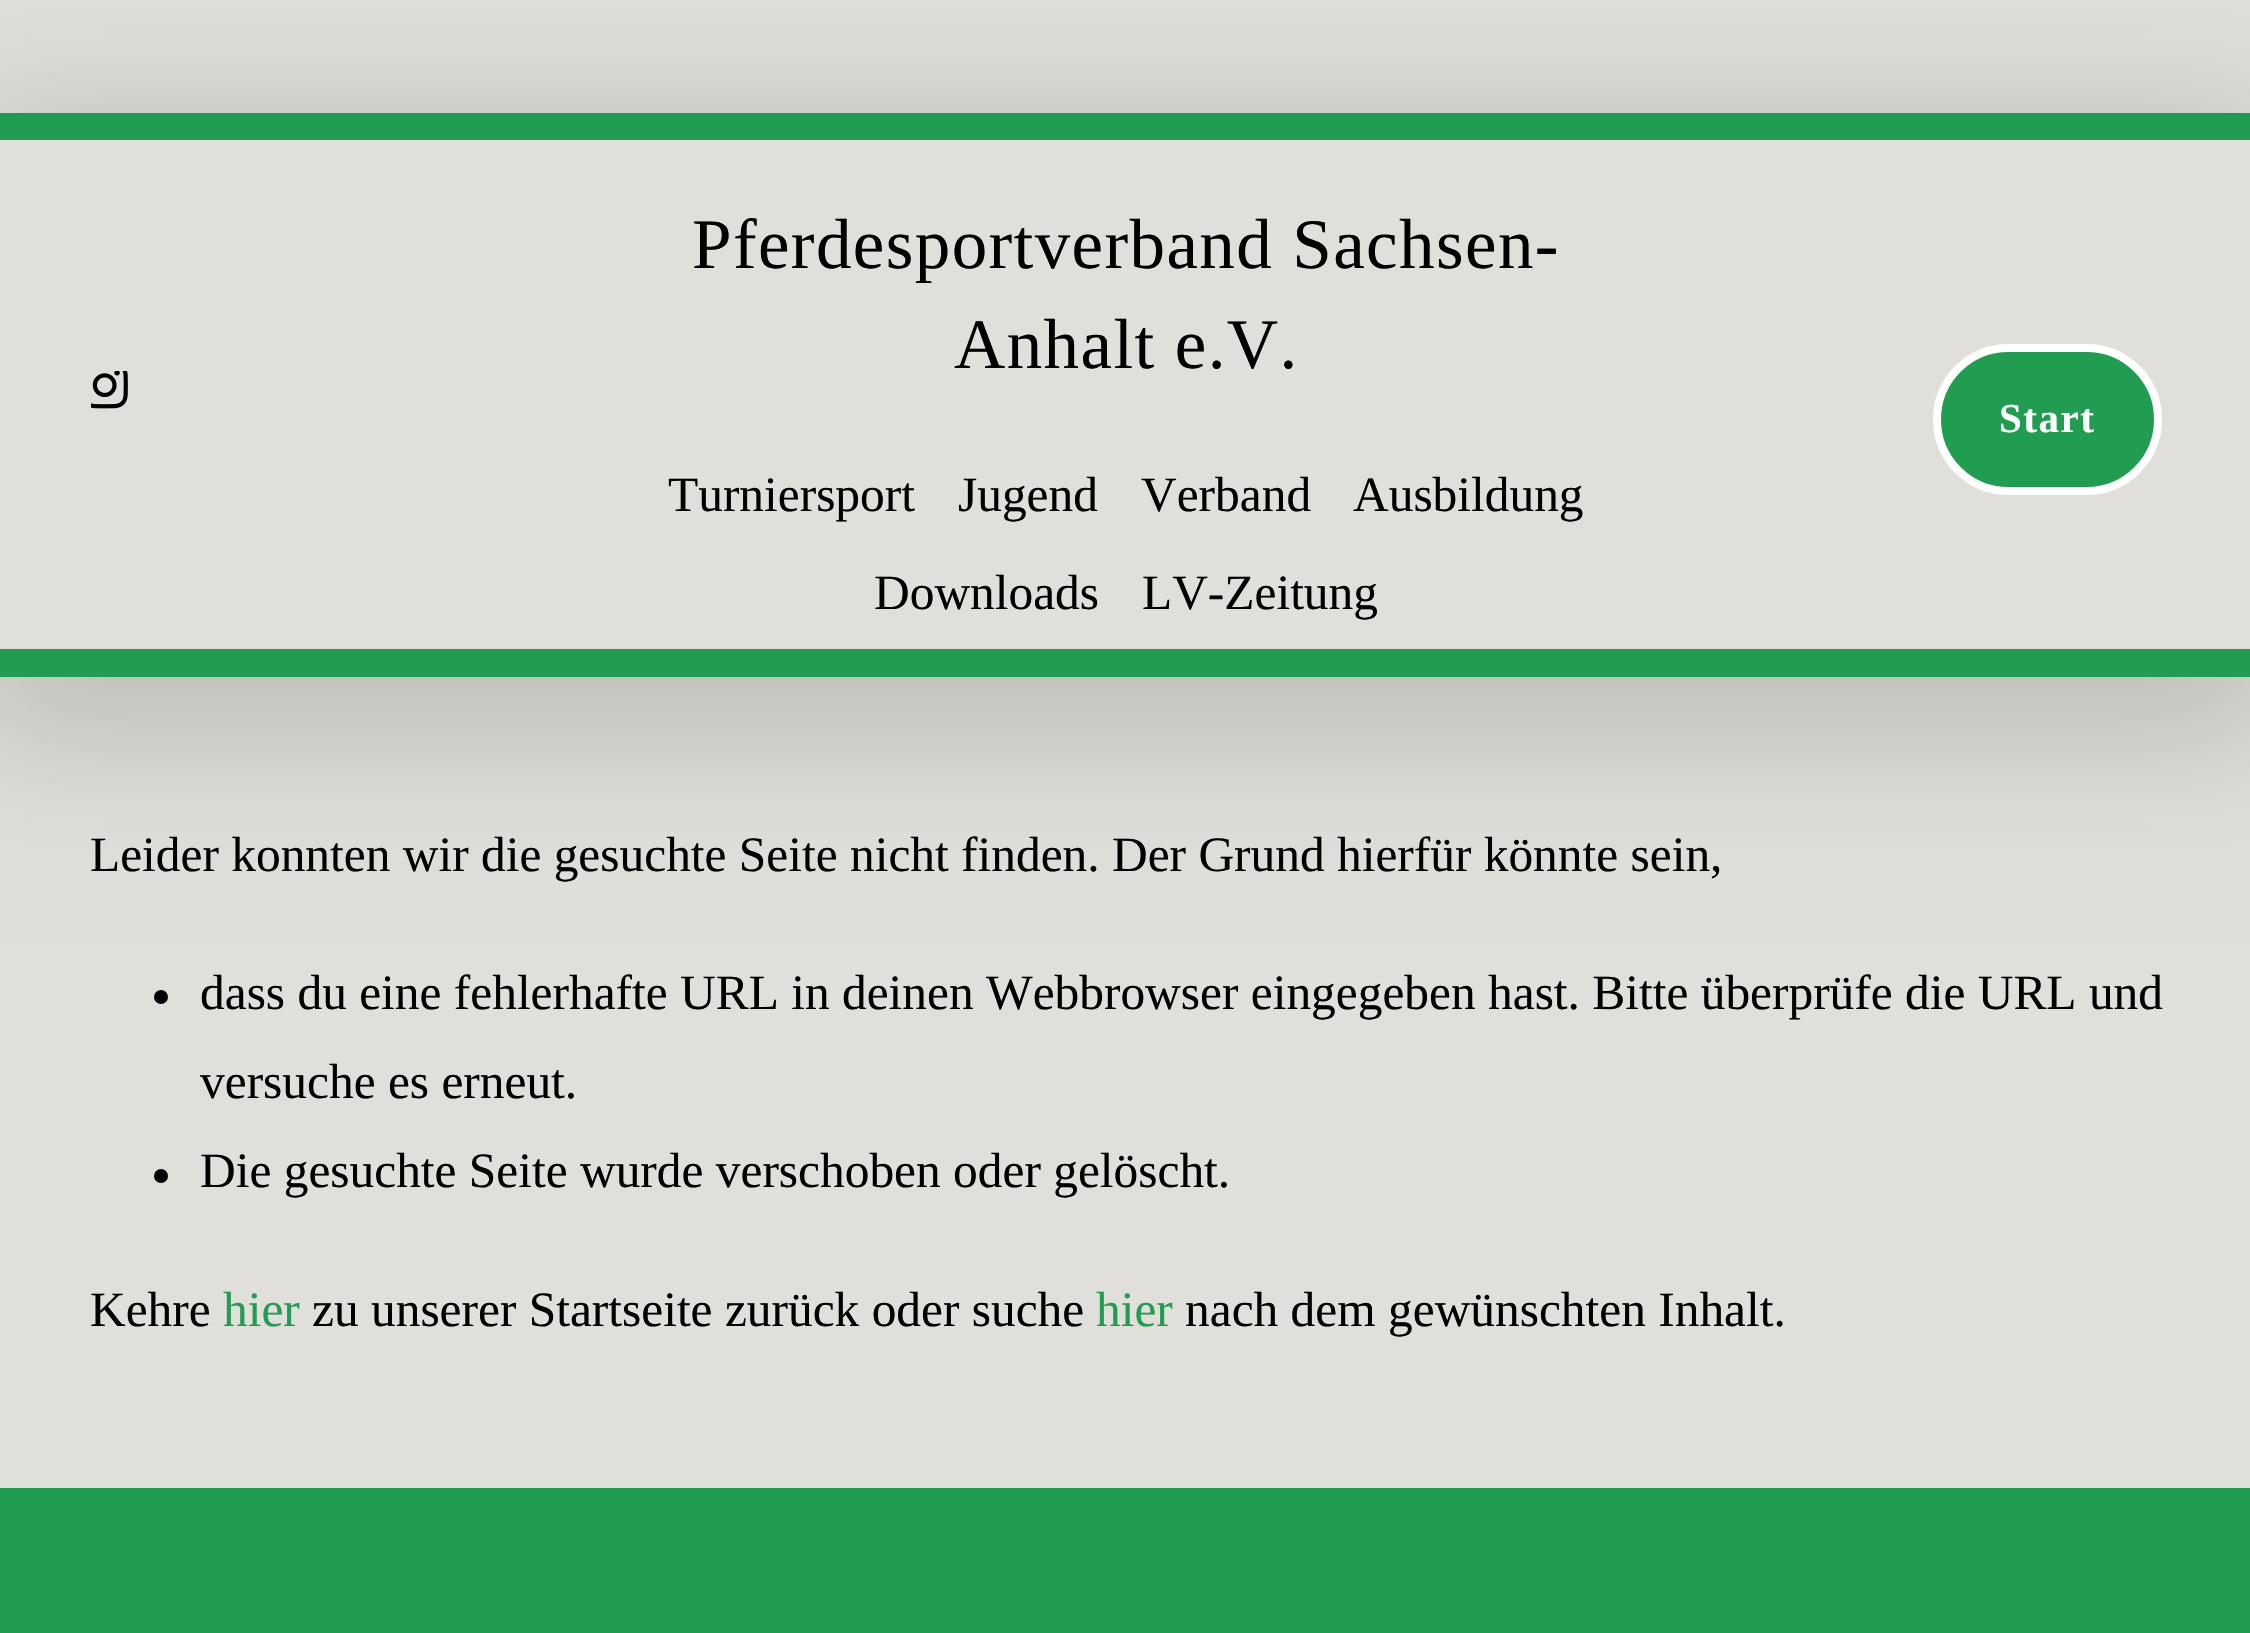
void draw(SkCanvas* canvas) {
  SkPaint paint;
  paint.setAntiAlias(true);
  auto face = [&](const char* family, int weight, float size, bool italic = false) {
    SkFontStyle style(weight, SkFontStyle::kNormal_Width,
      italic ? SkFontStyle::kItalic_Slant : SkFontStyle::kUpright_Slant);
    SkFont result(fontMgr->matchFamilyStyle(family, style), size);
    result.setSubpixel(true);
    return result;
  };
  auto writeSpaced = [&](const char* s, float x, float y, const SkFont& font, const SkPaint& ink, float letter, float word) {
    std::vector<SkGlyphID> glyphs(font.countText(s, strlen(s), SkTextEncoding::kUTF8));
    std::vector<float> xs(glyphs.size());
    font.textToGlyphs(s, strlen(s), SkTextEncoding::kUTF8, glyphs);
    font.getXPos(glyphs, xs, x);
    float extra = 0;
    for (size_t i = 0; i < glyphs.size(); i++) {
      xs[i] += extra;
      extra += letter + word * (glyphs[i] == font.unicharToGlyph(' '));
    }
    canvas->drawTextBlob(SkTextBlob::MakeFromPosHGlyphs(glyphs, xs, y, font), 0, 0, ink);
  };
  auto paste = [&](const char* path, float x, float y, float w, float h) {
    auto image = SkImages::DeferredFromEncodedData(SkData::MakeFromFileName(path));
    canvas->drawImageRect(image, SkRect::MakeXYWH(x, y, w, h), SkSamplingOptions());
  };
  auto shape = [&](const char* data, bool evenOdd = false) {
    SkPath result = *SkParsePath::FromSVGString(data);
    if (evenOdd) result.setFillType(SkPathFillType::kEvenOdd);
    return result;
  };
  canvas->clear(0xffe1dfd9);
  canvas->save();
  canvas->clipPath(shape("M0 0H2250V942H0ZM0 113H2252V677H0Z", true), true);
  paint.setColor(0x26000000);
  paint.setMaskFilter(SkMaskFilter::MakeBlur(kNormal_SkBlurStyle, 66));
  canvas->drawRect(SkRect::MakeXYWH(-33, 113, 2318, 630), paint);
  paint.setMaskFilter(nullptr);
  canvas->restore();
  paint.setColor(0xff209d50);
  canvas->drawRect(SkRect::MakeXYWH(0, 113, 2250, 27), paint);
  canvas->drawRect(SkRect::MakeXYWH(0, 649, 2250, 28), paint);
  paste("img/1.png", 91, 371, 37, 38);
  canvas->drawRoundRect(SkRect::MakeXYWH(1937, 348, 221, 143), 71.5f, 71.5f, paint);
  paint.setStroke(true);
  paint.setStrokeWidth(8);
  paint.setColor(0xffffffff);
  canvas->drawRoundRect(SkRect::MakeXYWH(1937, 348, 221, 143), 71.5f, 71.5f, paint);
  paint.setStroke(false);
  paint.setColor(0xff000000);
  canvas->drawCircle(161, 997, 7, paint);
  canvas->drawCircle(161, 1176, 7, paint);
  paint.setColor(0xff209d50);
  canvas->drawRect(SkRect::MakeXYWH(0, 1488, 2250, 145), paint);
  auto f0 = face("Liberation Serif", 400, 71);
  paint.setColor(0xff000000);
  writeSpaced("Pferdesportverband Sachsen-", 692, 268, f0, paint, 1.4f, 0);
  writeSpaced("Anhalt e.V.", 954, 368, f0, paint, 1.4f, 0);
  auto f1 = face("Liberation Serif", 400, 49.4f);
  {
    const struct { const char* s; float x, y; } items[] = {
      {"Turniersport", 668, 511},
      {"Jugend", 958, 511},
      {"Verband", 1141, 511},
      {"Ausbildung", 1353, 511},
      {"Downloads", 874, 609},
      {"LV-Zeitung", 1142, 609},
    };
    for (auto [s, x, y] : items) {
      canvas->drawString(s, x, y, f1, paint);
    }
  }
  auto f2 = face("Liberation Serif", 700, 41);
  paint.setColor(0xffffffff);
  writeSpaced("Start", 1999, 432, f2, paint, 1.5f, 0);
  paint.setColor(0xff000000);
  {
    const struct { const char* s; float x, y; } items[] = {
      {"Leider konnten wir die gesuchte Seite nicht finden. Der Grund hierfür könnte sein,", 90, 871},
      {"dass du eine fehlerhafte URL in deinen Webbrowser eingegeben hast. Bitte überprüfe die URL und", 200, 1009},
      {"versuche es erneut.", 200, 1098},
      {"Die gesuchte Seite wurde verschoben oder gelöscht.", 200, 1187},
      {"Kehre", 90, 1326},
    };
    for (auto [s, x, y] : items) {
      canvas->drawString(s, x, y, f1, paint);
    }
  }
  paint.setColor(0xff209d50);
  canvas->drawString("hier", 223, 1326, f1, paint);
  paint.setColor(0xff000000);
  canvas->drawString("zu unserer Startseite zurück oder suche", 312, 1326, f1, paint);
  paint.setColor(0xff209d50);
  canvas->drawString("hier", 1096, 1326, f1, paint);
  paint.setColor(0xff000000);
  canvas->drawString("nach dem gewünschten Inhalt.", 1185, 1326, f1, paint);
}
